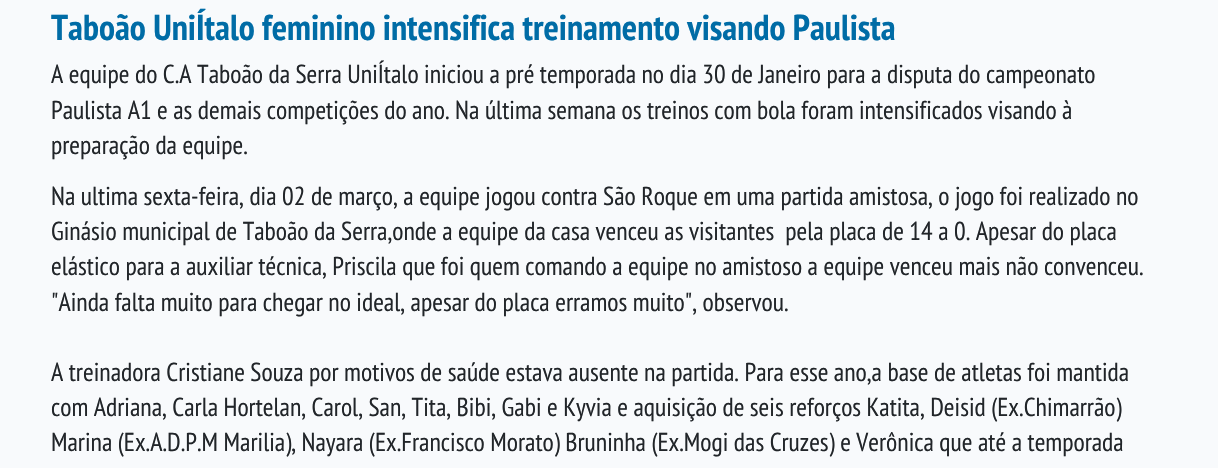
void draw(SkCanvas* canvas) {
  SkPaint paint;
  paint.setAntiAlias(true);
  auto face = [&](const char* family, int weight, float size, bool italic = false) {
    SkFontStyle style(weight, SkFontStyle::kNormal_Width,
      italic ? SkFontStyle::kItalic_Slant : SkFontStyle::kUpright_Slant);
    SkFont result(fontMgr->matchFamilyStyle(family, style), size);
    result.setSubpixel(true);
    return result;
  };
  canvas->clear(0xfff8fafc);
  auto f0 = face("PT Sans Narrow", 700, 36);
  paint.setColor(0xff006ca6);
  canvas->drawString("Taboão UniÍtalo feminino intensifica treinamento visando Paulista", 51, 40, f0, paint);
  auto f1 = face("PT Sans Narrow", 400, 25.9f);
  paint.setColor(0xff212529);
  {
    const struct { const char* s; float x, y; } items[] = {
      {"A equipe do C.A Taboão da Serra UniÍtalo iniciou a pré temporada no dia 30 de Janeiro para a disputa do campeonato", 51, 83},
      {"Paulista A1 e as demais competições do ano. Na última semana os treinos com bola foram intensificados visando à", 51, 119},
      {"preparação da equipe.", 51, 154},
      {"Na ultima sexta-feira, dia 02 de março, a equipe jogou contra São Roque em uma partida amistosa, o jogo foi realizado no", 51, 205},
      {"Ginásio municipal de Taboão da Serra,onde a equipe da casa venceu as visitantes  pela placa de 14 a 0. Apesar do placa", 51, 240},
      {"elástico para a auxiliar técnica, Priscila que foi quem comando a equipe no amistoso a equipe venceu mais não convenceu.", 51, 275},
      {"\"Ainda falta muito para chegar no ideal, apesar do placa erramos muito\", observou.", 51, 311},
      {"A treinadora Cristiane Souza por motivos de saúde estava ausente na partida. Para esse ano,a base de atletas foi mantida", 51, 381},
      {"com Adriana, Carla Hortelan, Carol, San, Tita, Bibi, Gabi e Kyvia e aquisição de seis reforços Katita, Deisid (Ex.Chimarrão)", 51, 416},
      {"Marina (Ex.A.D.P.M Marilia), Nayara (Ex.Francisco Morato) Bruninha (Ex.Mogi das Cruzes) e Verônica que até a temporada", 51, 451},
    };
    for (auto [s, x, y] : items) {
      canvas->drawString(s, x, y, f1, paint);
    }
  }
}
